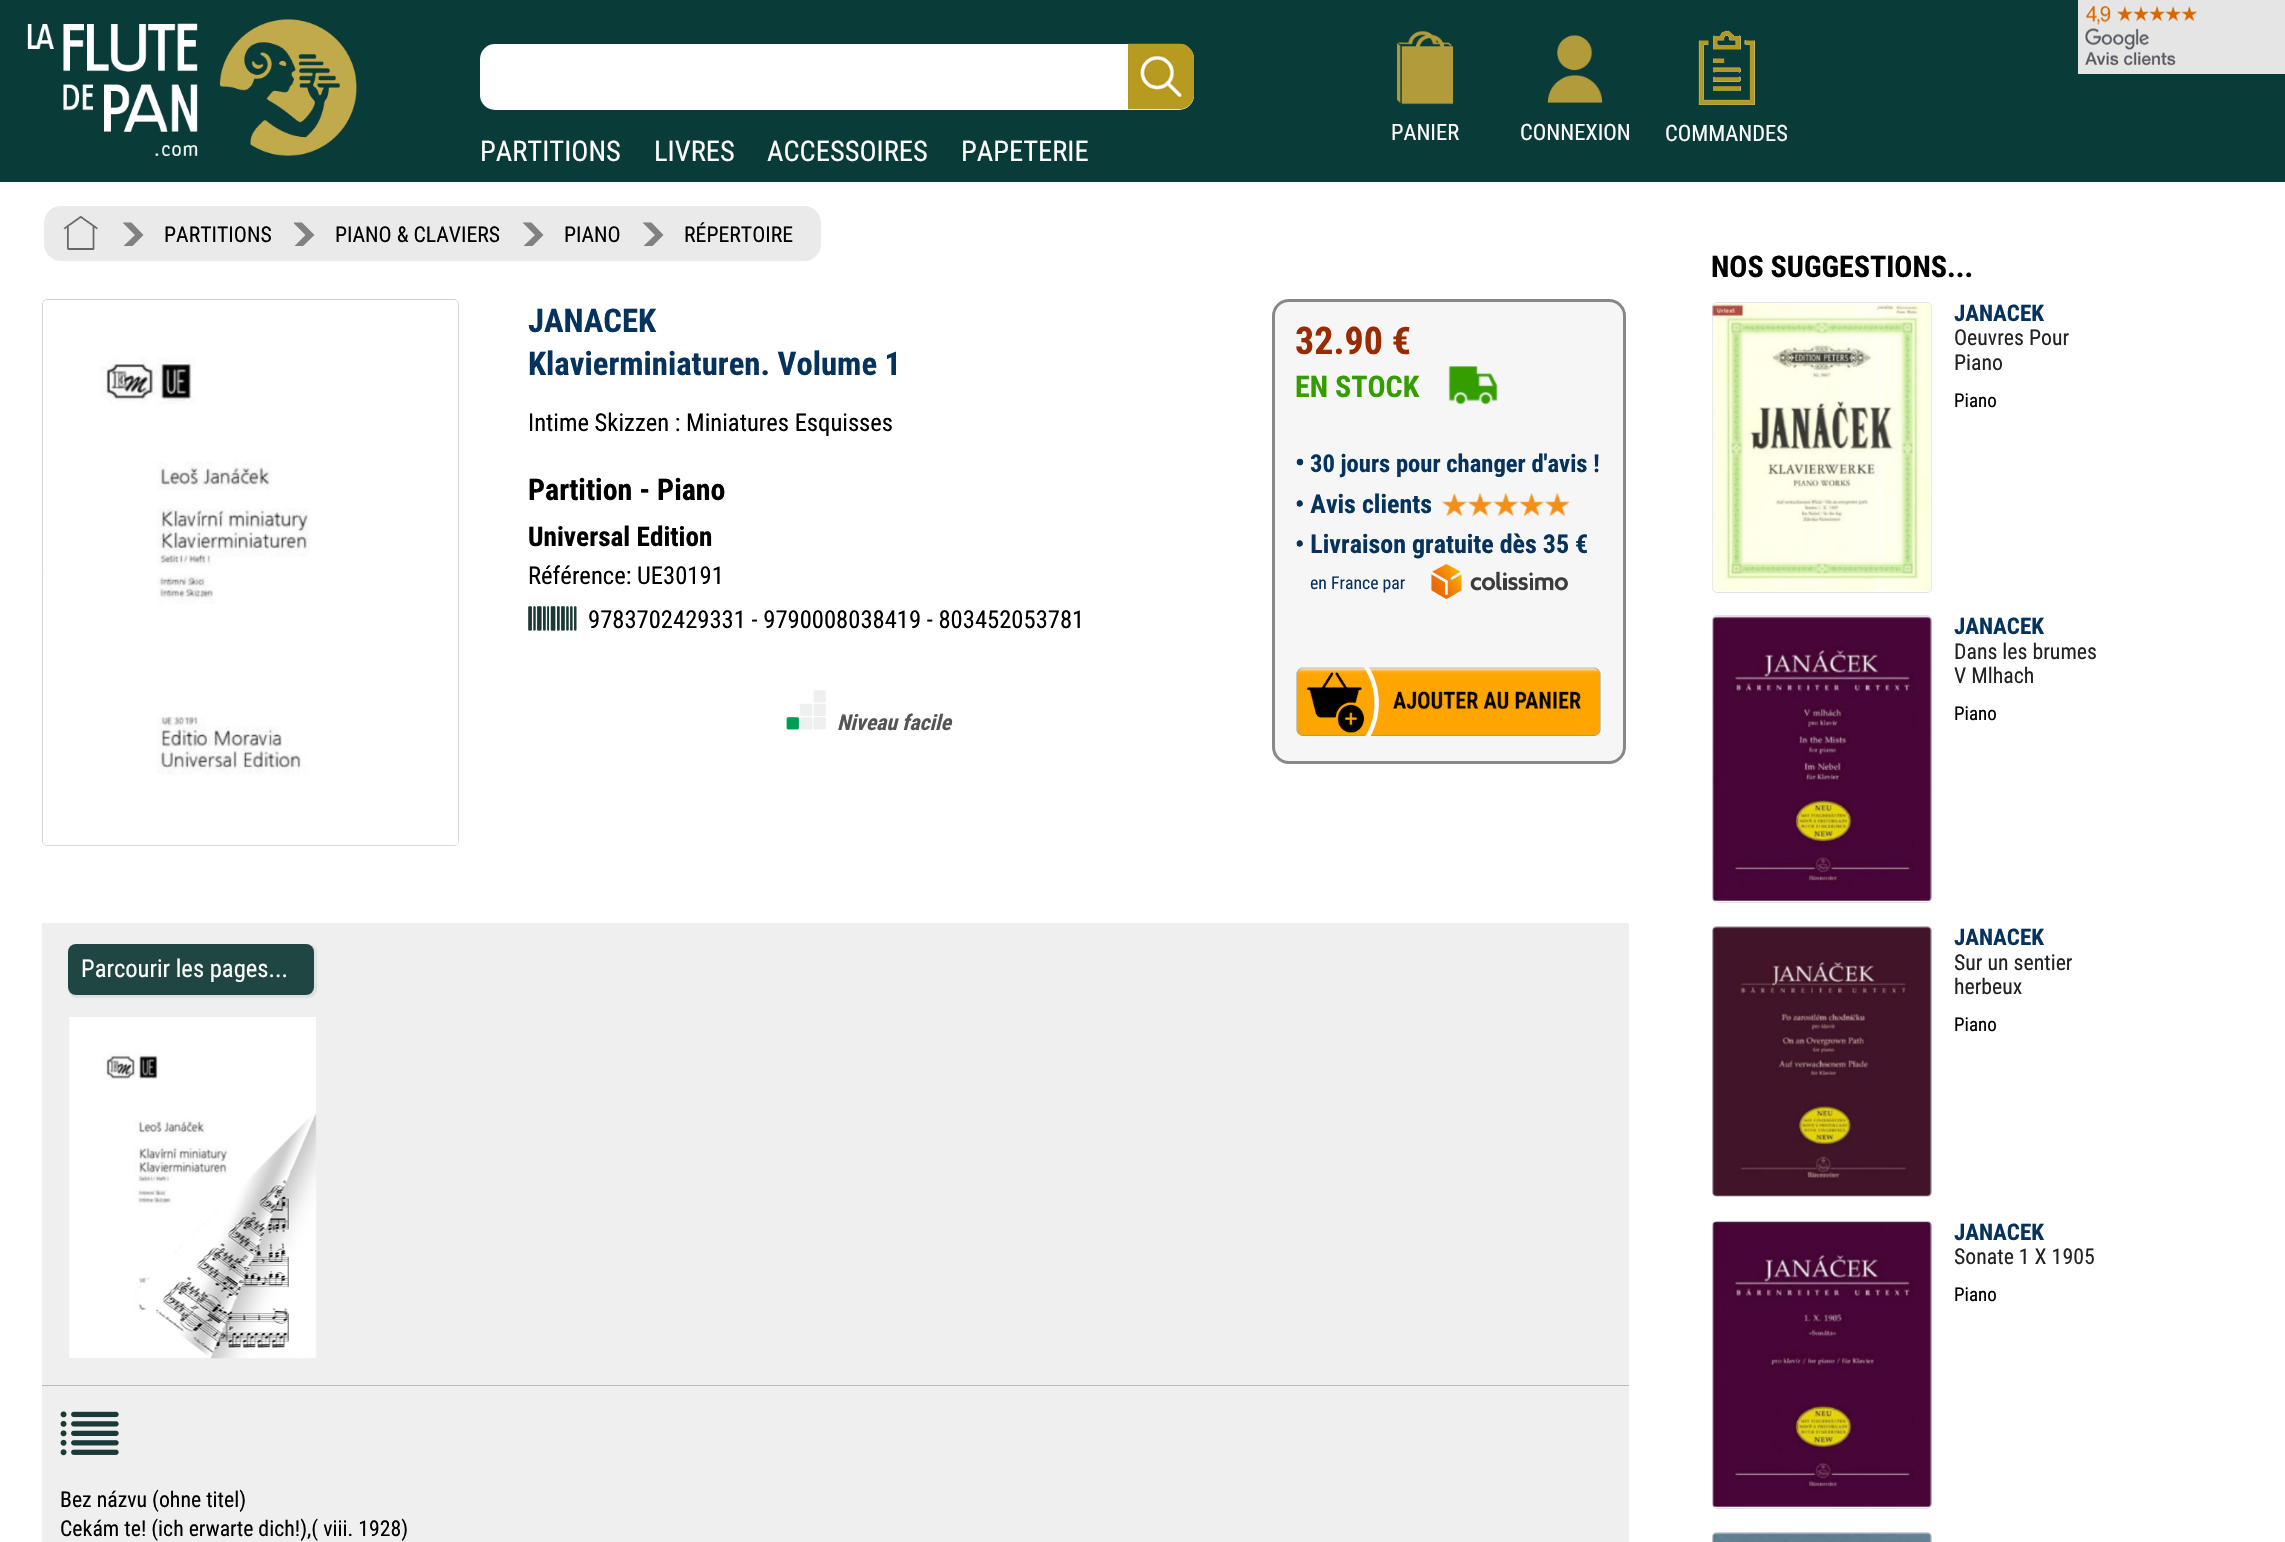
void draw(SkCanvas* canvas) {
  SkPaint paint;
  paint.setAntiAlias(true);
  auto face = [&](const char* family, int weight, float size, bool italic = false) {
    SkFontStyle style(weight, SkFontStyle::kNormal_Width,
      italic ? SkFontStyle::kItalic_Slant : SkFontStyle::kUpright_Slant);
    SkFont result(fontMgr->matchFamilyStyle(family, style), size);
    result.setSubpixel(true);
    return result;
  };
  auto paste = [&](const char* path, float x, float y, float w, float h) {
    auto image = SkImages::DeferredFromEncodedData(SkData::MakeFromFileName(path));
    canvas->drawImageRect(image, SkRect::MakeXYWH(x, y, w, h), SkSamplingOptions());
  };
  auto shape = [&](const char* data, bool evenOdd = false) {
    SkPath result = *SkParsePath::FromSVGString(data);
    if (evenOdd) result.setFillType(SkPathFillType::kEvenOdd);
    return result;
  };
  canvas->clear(0xffffffff);
  paint.setColor(0xff093b39);
  canvas->drawRect(SkRect::MakeXYWH(0, 0, 2285, 182), paint);
  paste("img/1.png", 2078, 0, 207, 74);
  paste("img/2.png", 27, 19, 330, 137);
  paste("img/3.png", 1396, 30, 58, 75);
  paste("img/4.png", 1547, 35, 56, 68);
  paste("img/5.png", 1698, 30, 57, 75);
  paint.setColor(0xffffffff);
  canvas->drawRoundRect(SkRect::MakeXYWH(480, 44, 714, 66), 15, 15, paint);
  paste("img/6.png", 1128, 43, 66, 67);
  paint.setColor(0xffeaeaea);
  canvas->drawRoundRect(SkRect::MakeXYWH(44, 206, 777, 55), 17, 17, paint);
  paste("img/7.png", 63, 215, 35, 35);
  canvas->save();
  canvas->clipRect(SkRect::MakeXYWH(123, 222, 24, 24));
  paint.setColor(0xff818181);
  canvas->drawPath(shape("M122.5 222.5L135 235L122.5 247H131.5L143.5 235L131.5 222.5Z"), paint);
  canvas->restore();
  canvas->save();
  canvas->clipRect(SkRect::MakeXYWH(294, 222, 24, 24));
  canvas->drawPath(shape("M293 222.5L305.5 235L293.5 247H302L314.5 235L302 222.5Z"), paint);
  canvas->restore();
  canvas->save();
  canvas->clipRect(SkRect::MakeXYWH(522, 222, 26, 24));
  canvas->drawPath(shape("M522.5 222.5L535 235L522.5 247H531.5L543.5 235L531.5 222.5Z"), paint);
  canvas->restore();
  canvas->save();
  canvas->clipRect(SkRect::MakeXYWH(642, 222, 26, 24));
  canvas->drawPath(shape("M642.5 222.5L655 235L642.5 247H651.5L663.5 235L651.5 222.5Z"), paint);
  canvas->restore();
  paint.setStroke(true);
  paint.setStrokeWidth(1);
  paint.setColor(0xffd1d1d1);
  canvas->drawRoundRect(SkRect::MakeXYWH(42.5f, 299.5f, 416, 546), 4.5f, 4.5f, paint);
  paste("img/8.png", 42, 300, 417, 546);
  paste("img/9.png", 528, 606, 49, 25);
  paste("img/10.png", 786, 690, 40, 40);
  paint.setStroke(false);
  paint.setColor(0xfff6f6f6);
  canvas->drawRoundRect(SkRect::MakeXYWH(1273.5f, 300.5f, 351, 462), 15.5f, 15.5f, paint);
  paint.setStroke(true);
  paint.setStrokeWidth(3);
  paint.setColor(0xff888888);
  canvas->drawRoundRect(SkRect::MakeXYWH(1273.5f, 300.5f, 351, 462), 15.5f, 15.5f, paint);
  paste("img/11.png", 1448, 366, 50, 39);
  paste("img/12.png", 1442, 493, 128, 24);
  paste("img/13.png", 1431, 564, 137, 35);
  paste("img/14.png", 1296, 667, 305, 69);
  paint.setStroke(false);
  paint.setColor(0xffefefef);
  canvas->drawRect(SkRect::MakeXYWH(42, 923, 1587, 462), paint);
  paint.setColor(0xffbbbbbb);
  canvas->drawRect(SkRect::MakeXYWH(42, 1385, 1587, 1), paint);
  paint.setColor(0xffdfdfdf);
  paint.setMaskFilter(SkMaskFilter::MakeBlur(kNormal_SkBlurStyle, 0.5f));
  canvas->drawRoundRect(SkRect::MakeXYWH(68, 944, 249, 54), 9, 9, paint);
  paint.setMaskFilter(nullptr);
  paint.setColor(0xff204644);
  canvas->drawRoundRect(SkRect::MakeXYWH(68, 944, 246, 51), 8, 8, paint);
  paste("img/15.png", 69, 1017, 247, 341);
  paste("img/16.png", 137, 1114, 180, 245);
  paint.setColor(0xffefefef);
  canvas->drawRect(SkRect::MakeXYWH(42, 1386, 1587, 156), paint);
  paste("img/17.png", 60, 1411, 59, 45);
  paint.setStroke(true);
  paint.setStrokeWidth(1);
  paint.setColor(0xffe1e1e8);
  canvas->drawRoundRect(SkRect::MakeXYWH(1712.5f, 302.5f, 219, 290), 4.5f, 4.5f, paint);
  paste("img/18.png", 1712, 303, 220, 289);
  canvas->drawRoundRect(SkRect::MakeXYWH(1712.5f, 615.5f, 219, 287), 4.5f, 4.5f, paint);
  paste("img/19.png", 1712, 616, 220, 286);
  canvas->drawRoundRect(SkRect::MakeXYWH(1712.5f, 926.5f, 219, 270), 4.5f, 4.5f, paint);
  paste("img/20.png", 1712, 926, 220, 271);
  canvas->drawRoundRect(SkRect::MakeXYWH(1712.5f, 1221.5f, 219, 287), 4.5f, 4.5f, paint);
  paste("img/21.png", 1712, 1221, 220, 287);
  canvas->drawRoundRect(SkRect::MakeXYWH(1712.5f, 1532.5f, 219, 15), 4.5f, 4.5f, paint);
  paste("img/22.png", 1712, 1532, 220, 10);
  auto f0 = face("Roboto Condensed", 400, 22.5f);
  paint.setStroke(false);
  paint.setColor(0xffffffff);
  {
    const struct { const char* s; float x, y; } items[] = {
      {"PANIER", 1391, 140},
      {"CONNEXION", 1520, 140},
      {"COMMANDES", 1665, 141},
    };
    for (auto [s, x, y] : items) {
      canvas->drawString(s, x, y, f0, paint);
    }
  }
  auto f1 = face("Roboto Condensed", 400, 28.5f);
  {
    const struct { const char* s; float x, y; } items[] = {
      {"PARTITIONS", 480, 161},
      {"LIVRES", 654, 161},
      {"ACCESSOIRES", 767, 161},
      {"PAPETERIE", 961, 161},
    };
    for (auto [s, x, y] : items) {
      canvas->drawString(s, x, y, f1, paint);
    }
  }
  auto f2 = face("Roboto Condensed", 400, 21.8f);
  paint.setColor(0xff000000);
  {
    const struct { const char* s; float x, y; } items[] = {
      {"PARTITIONS", 164, 242},
      {"PIANO & CLAVIERS", 335, 242},
      {"PIANO", 564, 242},
      {"RÉPERTOIRE", 684, 242},
    };
    for (auto [s, x, y] : items) {
      canvas->drawString(s, x, y, f2, paint);
    }
  }
  auto f3 = face("Roboto Condensed", 700, 32.75f);
  paint.setColor(0xff06335d);
  canvas->drawString("JANACEK", 528, 332, f3, paint);
  canvas->drawString("Klavierminiaturen. Volume 1", 528, 375, f3, paint);
  auto f4 = face("Roboto Condensed", 400, 24.6f);
  paint.setColor(0xff000000);
  canvas->drawString("Intime Skizzen : Miniatures Esquisses", 528, 431, f4, paint);
  auto f5 = face("Roboto Condensed", 700, 30);
  canvas->drawString("Partition - Piano", 528, 500, f5, paint);
  auto f6 = face("Roboto Condensed", 700, 27.25f);
  canvas->drawString("Universal Edition", 528, 546, f6, paint);
  canvas->drawString("Référence: UE30191", 528, 584, f4, paint);
  canvas->drawString("9783702429331 - 9790008038419 - 803452053781", 588, 628, f4, paint);
  auto f7 = face("Roboto Condensed", 700, 21.8f, true);
  paint.setColor(0xff555555);
  canvas->drawString("Niveau facile", 837, 730, f7, paint);
  auto f8 = face("Roboto Condensed", 700, 38);
  paint.setColor(0xff9a2a00);
  canvas->drawString("32.90 €", 1295, 354, f8, paint);
  paint.setColor(0xff349e01);
  canvas->drawString("EN STOCK", 1295, 397, f5, paint);
  paint.setColor(0xff06335d);
  canvas->drawString("•", 1295, 472, f6, paint);
  auto f9 = face("Roboto Condensed", 700, 24.6f);
  canvas->drawString("30 jours pour changer d'avis !", 1310, 472, f9, paint);
  auto f10 = face("Roboto Condensed", 700, 26);
  canvas->drawString("• Avis clients", 1295, 513, f10, paint);
  canvas->drawString("• Livraison gratuite dès 35 €", 1295, 553, f10, paint);
  auto f11 = face("Roboto Condensed", 400, 17.75f);
  canvas->drawString("en France par", 1310, 589, f11, paint);
  paint.setColor(0xffffffff);
  canvas->drawString("Parcourir les pages...", 81, 977, f4, paint);
  paint.setColor(0xff000000);
  canvas->drawString("Bez názvu (ohne titel)", 60, 1507, f2, paint);
  canvas->drawString("Cekám te! (ich erwarte dich!),( viii. 1928)", 60, 1536, f2, paint);
  canvas->drawString("NOS SUGGESTIONS...", 1711, 277, f5, paint);
  auto f12 = face("Roboto Condensed", 700, 23);
  paint.setColor(0xff06335d);
  canvas->drawString("JANACEK", 1954, 321, f12, paint);
  paint.setColor(0xff222222);
  canvas->drawString("Oeuvres Pour", 1954, 345, f2, paint);
  canvas->drawString("Piano", 1954, 370, f2, paint);
  auto f13 = face("Roboto Condensed", 400, 19);
  paint.setColor(0xff000000);
  canvas->drawString("Piano", 1954, 407, f13, paint);
  paint.setColor(0xff06335d);
  canvas->drawString("JANACEK", 1954, 634, f12, paint);
  paint.setColor(0xff222222);
  canvas->drawString("Dans les brumes", 1954, 659, f2, paint);
  canvas->drawString("V Mlhach", 1954, 683, f2, paint);
  paint.setColor(0xff000000);
  canvas->drawString("Piano", 1954, 720, f13, paint);
  paint.setColor(0xff06335d);
  canvas->drawString("JANACEK", 1954, 945, f12, paint);
  paint.setColor(0xff222222);
  canvas->drawString("Sur un sentier", 1954, 970, f2, paint);
  canvas->drawString("herbeux", 1954, 994, f2, paint);
  paint.setColor(0xff000000);
  canvas->drawString("Piano", 1954, 1031, f13, paint);
  paint.setColor(0xff06335d);
  canvas->drawString("JANACEK", 1954, 1240, f12, paint);
  paint.setColor(0xff222222);
  canvas->drawString("Sonate 1 X 1905", 1954, 1264, f2, paint);
  paint.setColor(0xff000000);
  canvas->drawString("Piano", 1954, 1301, f13, paint);
}
